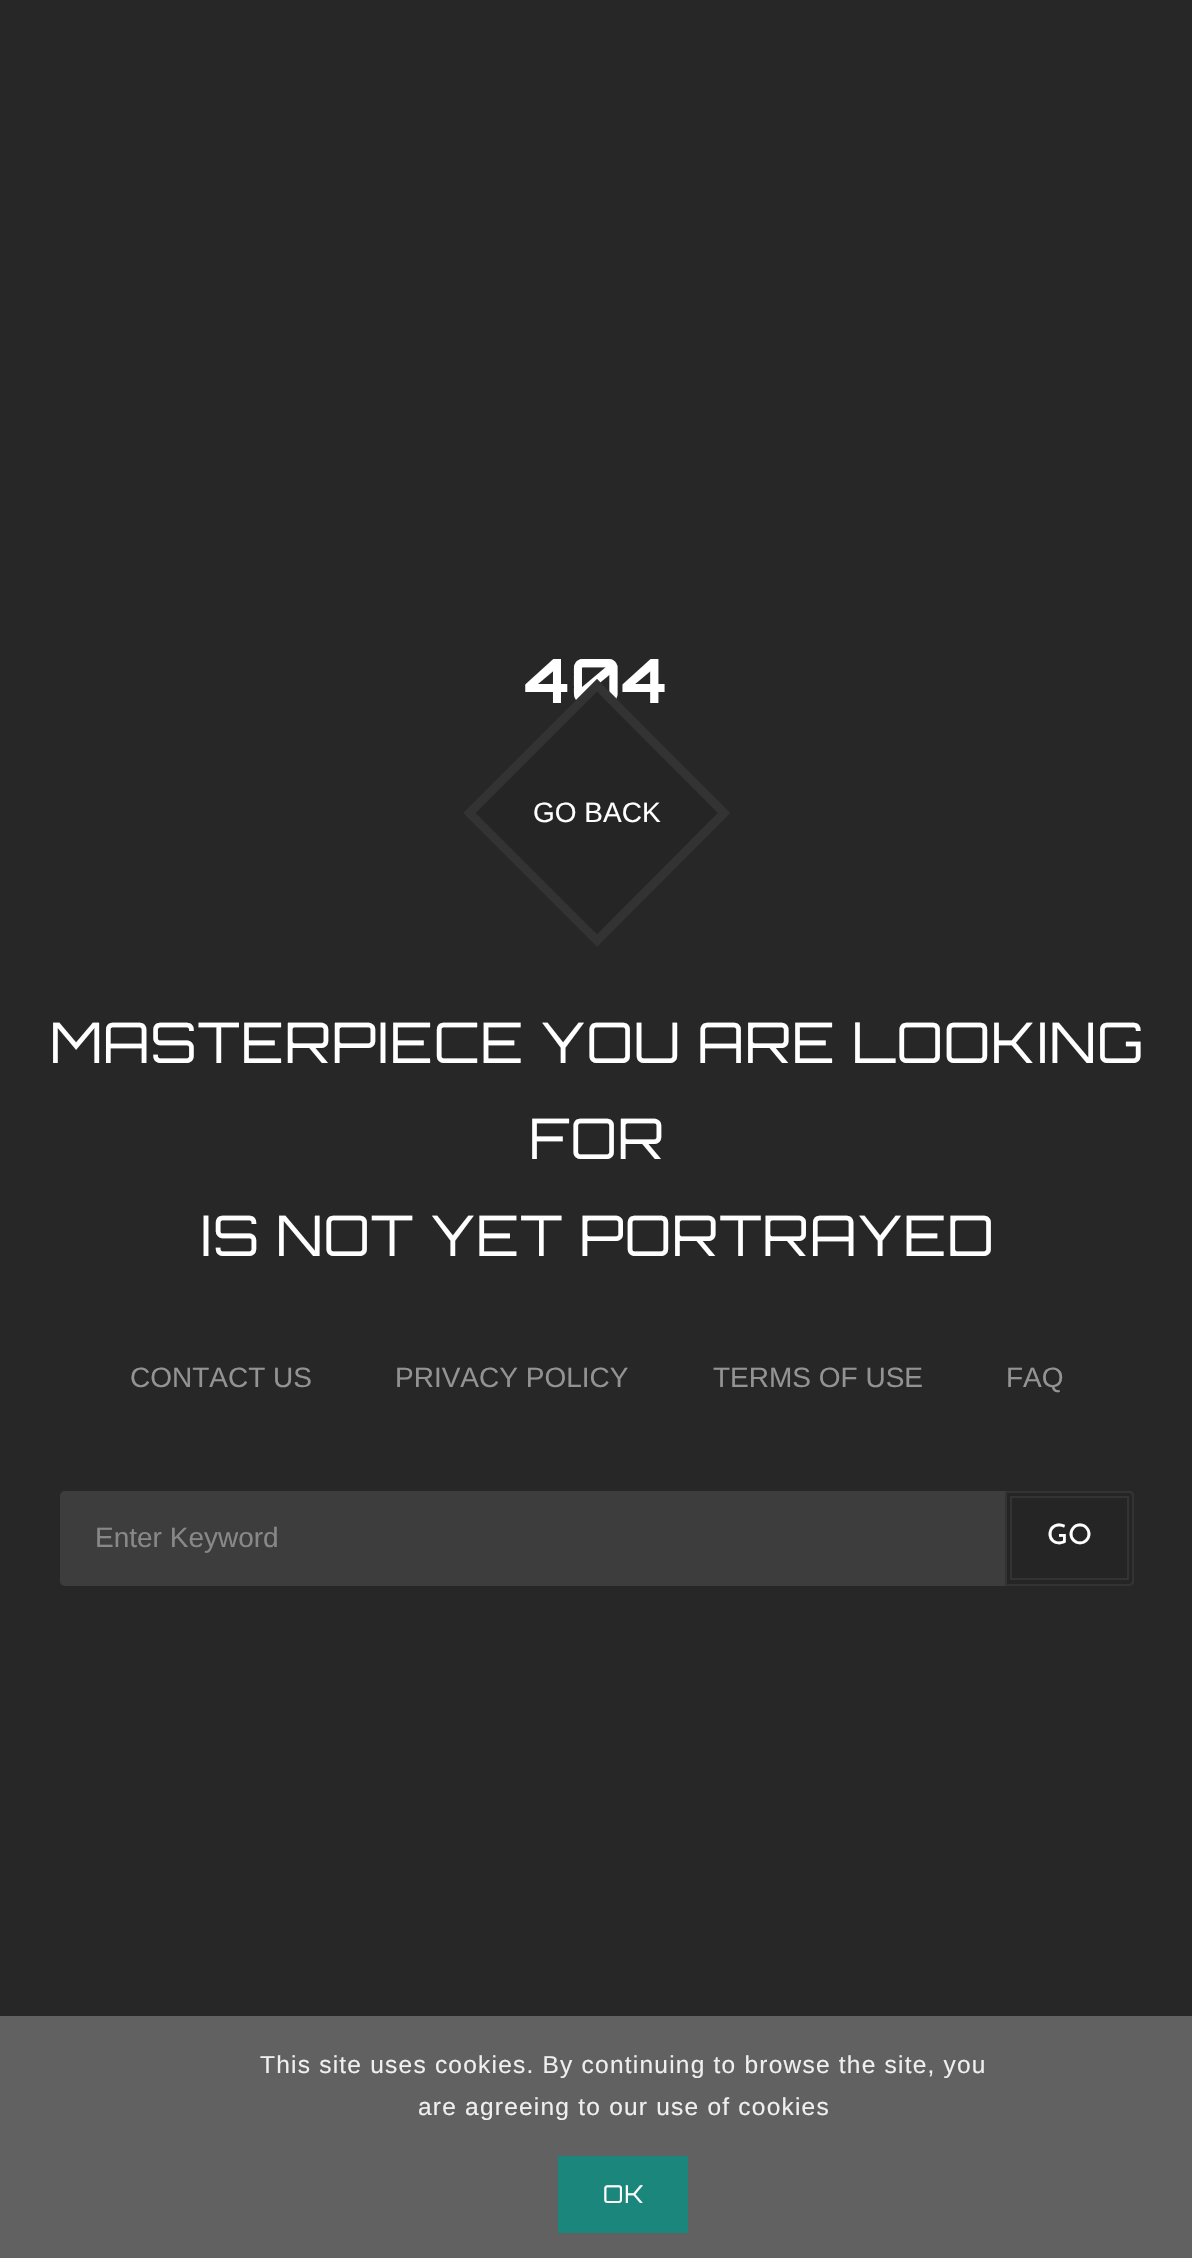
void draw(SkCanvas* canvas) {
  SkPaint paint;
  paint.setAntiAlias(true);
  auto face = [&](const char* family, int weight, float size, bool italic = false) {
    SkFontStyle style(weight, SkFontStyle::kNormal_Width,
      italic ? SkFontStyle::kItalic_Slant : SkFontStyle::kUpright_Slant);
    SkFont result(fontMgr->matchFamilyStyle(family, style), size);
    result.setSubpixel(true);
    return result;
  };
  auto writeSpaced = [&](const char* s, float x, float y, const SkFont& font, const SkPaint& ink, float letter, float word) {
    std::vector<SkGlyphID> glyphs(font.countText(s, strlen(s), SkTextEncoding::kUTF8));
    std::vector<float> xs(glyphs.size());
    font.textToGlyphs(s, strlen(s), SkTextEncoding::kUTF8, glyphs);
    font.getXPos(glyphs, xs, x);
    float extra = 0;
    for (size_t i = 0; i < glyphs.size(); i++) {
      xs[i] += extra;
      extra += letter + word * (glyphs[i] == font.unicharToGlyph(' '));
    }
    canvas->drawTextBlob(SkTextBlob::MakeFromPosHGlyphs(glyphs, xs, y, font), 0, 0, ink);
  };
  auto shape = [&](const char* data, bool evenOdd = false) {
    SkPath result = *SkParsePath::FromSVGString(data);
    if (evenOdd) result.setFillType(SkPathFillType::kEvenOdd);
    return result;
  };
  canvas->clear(0xff272727);
  paint.setColor(0xff3d3d3d);
  canvas->drawRoundRect(SkRect::MakeXYWH(60, 1491, 1074, 95), 5, 5, paint);
  paint.setColor(0xff252525);
  canvas->drawPath(shape("M1006 1492H1129C1131 1492 1133 1494 1133 1496V1581C1133 1583 1131 1585 1129 1585H1006Z"), paint);
  paint.setStroke(true);
  paint.setStrokeWidth(2);
  paint.setColor(0xff333333);
  canvas->drawPath(shape("M1006 1492H1129C1131 1492 1133 1494 1133 1496V1581C1133 1583 1131 1585 1129 1585H1006Z"), paint);
  canvas->drawRect(SkRect::MakeXYWH(1011, 1497, 117, 82), paint);
  paint.setStroke(false);
  paint.setColor(0xff616161);
  canvas->drawRect(SkRect::MakeXYWH(0, 2016, 1192, 242), paint);
  paint.setColor(0xff1b877c);
  canvas->drawRect(SkRect::MakeXYWH(558, 2156, 130, 77), paint);
  auto f0 = face("Orbitron", 700, 61);
  paint.setColor(0xffffffff);
  writeSpaced("404", 525, 703, f0, paint, 0.9f, 0);
  paint.setColor(0xff252525);
  canvas->drawPath(shape("M597 679L730 813L597 947L463 813Z"), paint);
  paint.setStroke(true);
  paint.setStrokeWidth(8.8f);
  paint.setColor(0xff333333);
  canvas->drawPath(shape("M597 685.5L724 813L597 940.5L469.5 813Z"), paint);
  auto f1 = face("Liberation Sans", 400, 28);
  paint.setStroke(false);
  paint.setColor(0xffffffff);
  canvas->drawString("GO BACK", 533, 822, f1, paint);
  auto f2 = face("Orbitron", 400, 56);
  {
    const struct { const char* s; float x, y; } items[] = {
      {"MASTERPIECE YOU ARE LOOKING", 50, 1063},
      {"FOR", 529, 1159},
      {"IS NOT YET PORTRAYED", 200, 1256},
    };
    for (auto [s, x, y] : items) {
      writeSpaced(s, x, y, f2, paint, 0.9f, 0);
    }
  }
  paint.setColor(0xff939393);
  {
    const struct { const char* s; float x, y; } items[] = {
      {"CONTACT US", 130, 1387},
      {"PRIVACY POLICY", 395, 1387},
      {"TERMS OF USE", 713, 1387},
      {"FAQ", 1006, 1387},
    };
    for (auto [s, x, y] : items) {
      canvas->drawString(s, x, y, f1, paint);
    }
  }
  paint.setColor(0xff888888);
  canvas->drawString("Enter Keyword", 95, 1547, f1, paint);
  auto f3 = face("Josefin Sans", 400, 28);
  paint.setColor(0xffffffff);
  canvas->drawString("GO", 1047, 1544, f3, paint);
  auto f4 = face("Liberation Sans", 400, 24.5f);
  paint.setColor(0xffefefef);
  writeSpaced("This site uses cookies. By continuing to browse the site, you", 260, 2073, f4, paint, 1.22f, 0);
  writeSpaced("are agreeing to our use of cookies", 418, 2115, f4, paint, 1.22f, 0);
  auto f5 = face("Orbitron", 400, 24.5f);
  paint.setColor(0xffffffff);
  writeSpaced("OK", 603, 2203, f5, paint, 1.22f, 0);
}
